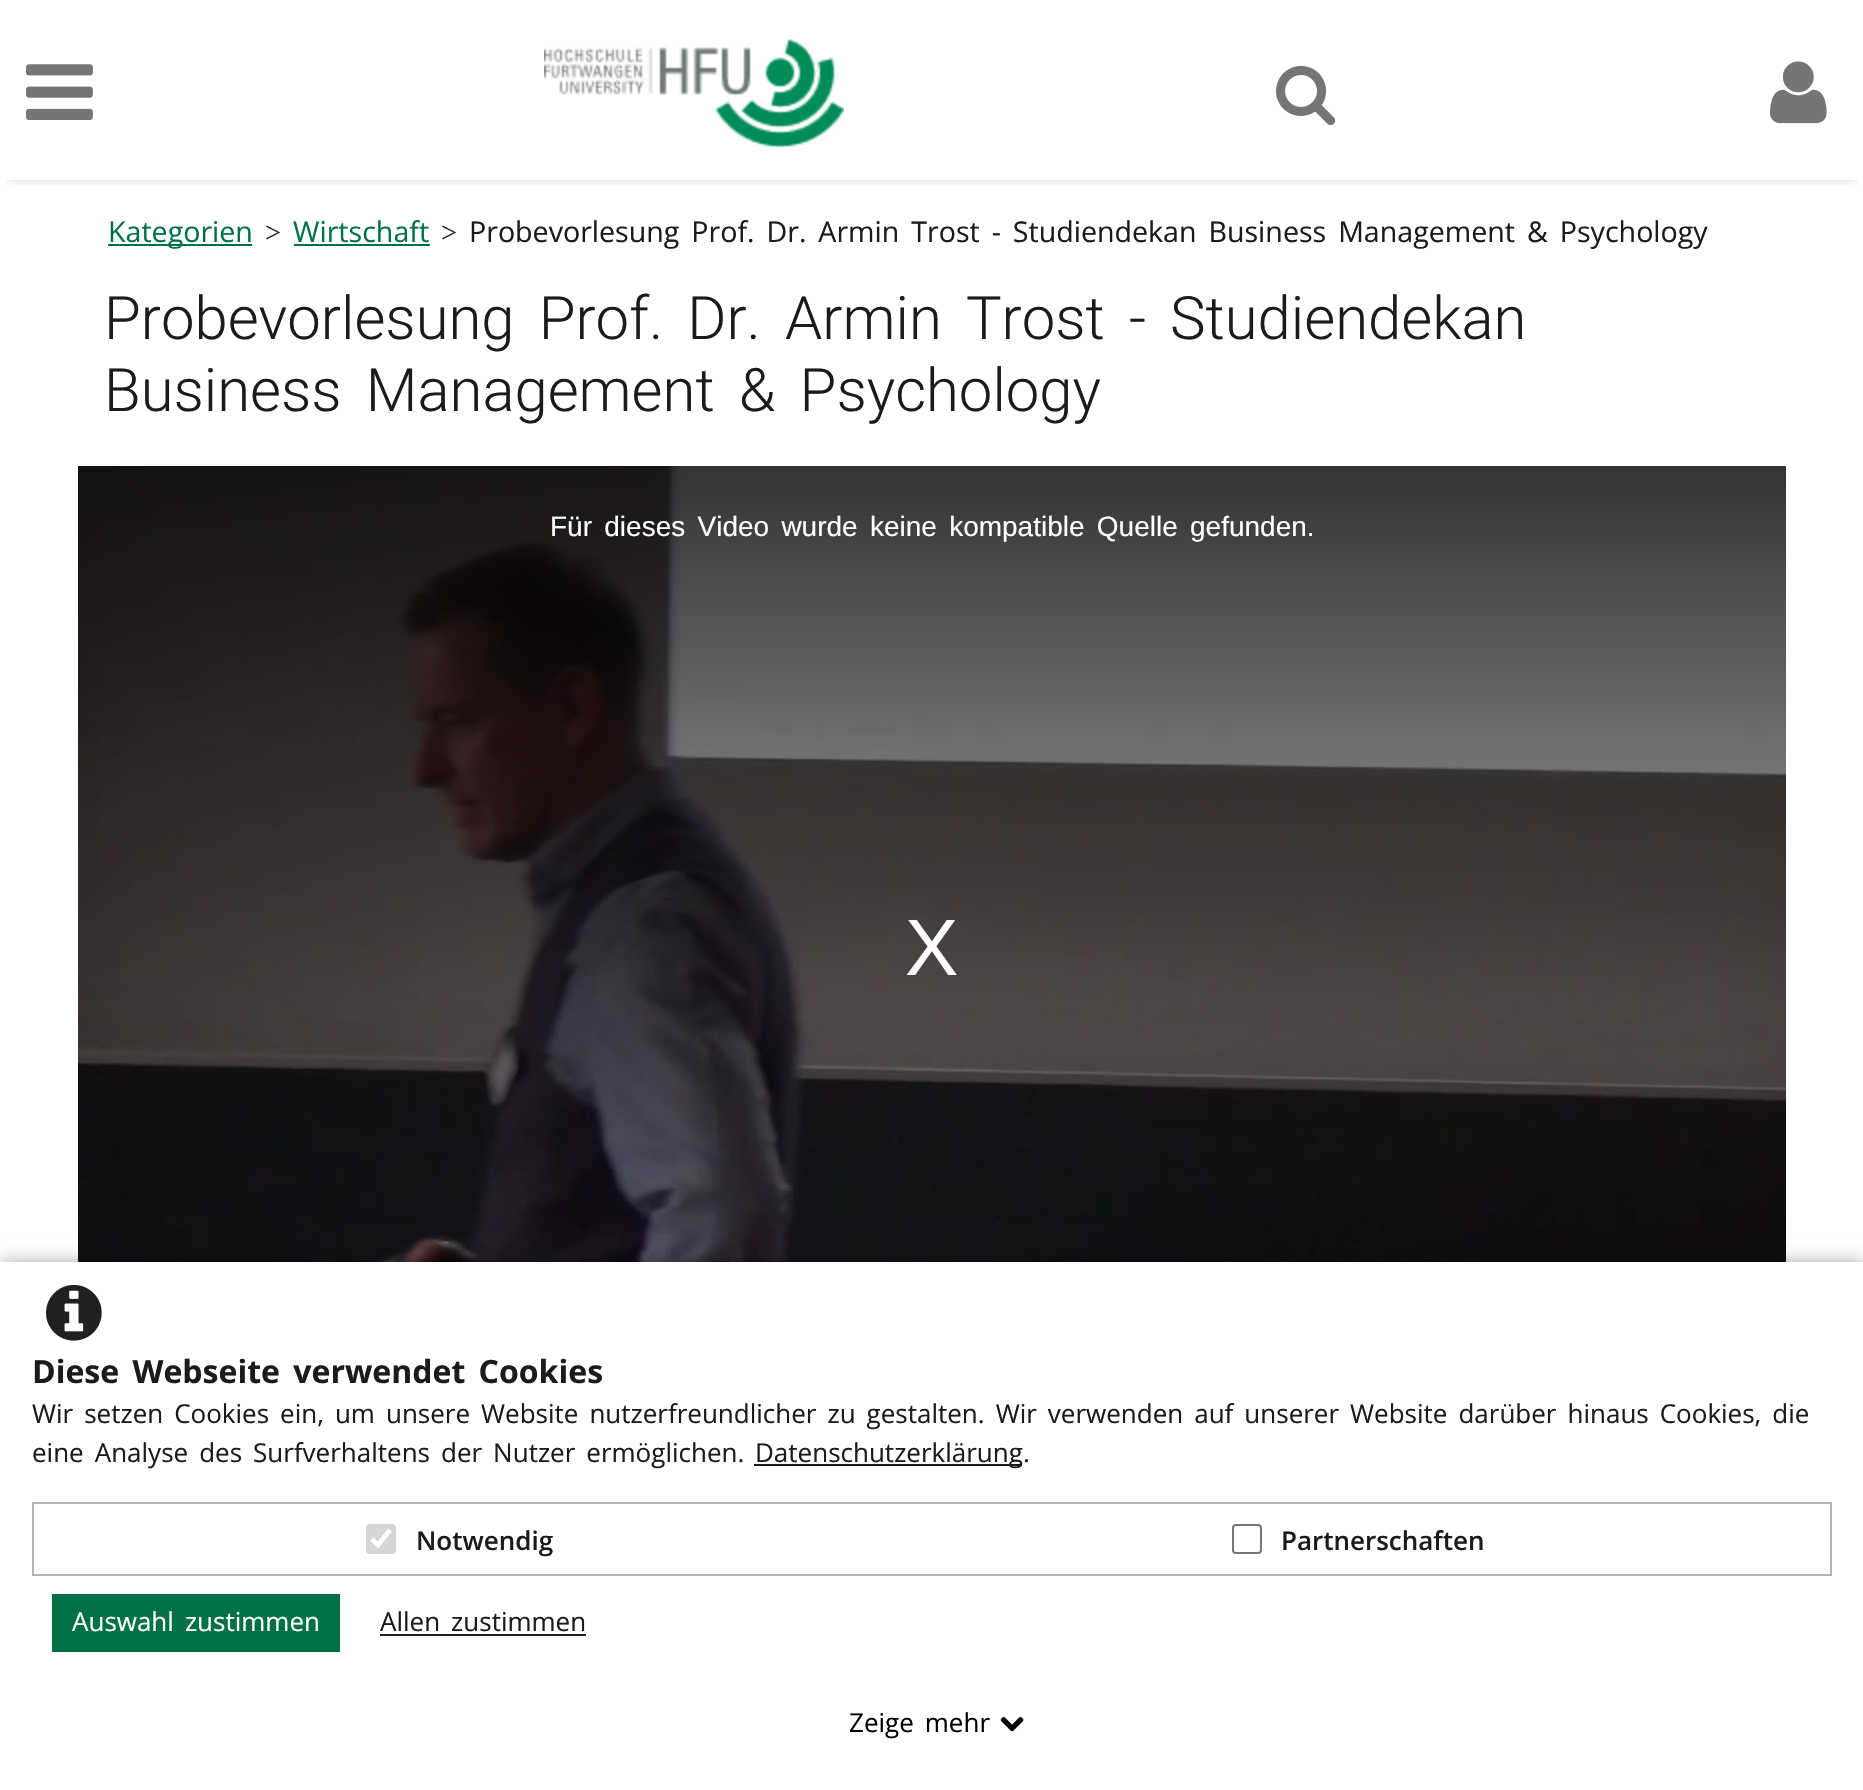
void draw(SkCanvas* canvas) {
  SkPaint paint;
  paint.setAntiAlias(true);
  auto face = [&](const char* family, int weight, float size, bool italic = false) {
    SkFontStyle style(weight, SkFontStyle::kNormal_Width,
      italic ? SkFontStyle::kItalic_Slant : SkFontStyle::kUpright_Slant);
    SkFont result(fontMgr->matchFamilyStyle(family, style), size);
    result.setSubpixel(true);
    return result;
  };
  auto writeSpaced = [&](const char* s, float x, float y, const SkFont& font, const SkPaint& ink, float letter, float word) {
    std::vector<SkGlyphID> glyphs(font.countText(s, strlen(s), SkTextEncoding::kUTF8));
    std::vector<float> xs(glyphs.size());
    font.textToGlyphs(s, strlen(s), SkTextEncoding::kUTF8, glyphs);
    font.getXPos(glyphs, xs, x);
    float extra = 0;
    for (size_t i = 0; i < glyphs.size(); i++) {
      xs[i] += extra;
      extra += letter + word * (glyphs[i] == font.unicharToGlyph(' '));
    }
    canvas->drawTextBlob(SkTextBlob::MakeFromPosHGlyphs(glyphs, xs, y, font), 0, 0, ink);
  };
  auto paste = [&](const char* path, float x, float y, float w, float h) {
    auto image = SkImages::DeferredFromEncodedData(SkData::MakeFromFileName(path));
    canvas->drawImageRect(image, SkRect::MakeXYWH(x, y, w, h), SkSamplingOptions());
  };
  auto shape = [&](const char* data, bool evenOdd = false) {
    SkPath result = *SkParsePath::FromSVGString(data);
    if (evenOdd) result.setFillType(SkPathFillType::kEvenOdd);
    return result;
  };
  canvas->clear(0xffffffff);
  canvas->save();
  canvas->clipRect(SkRect::MakeXYWH(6, 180, 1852, 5));
  paint.setColor(0x29000000);
  paint.setMaskFilter(SkMaskFilter::MakeBlur(kNormal_SkBlurStyle, 4));
  canvas->drawRect(SkRect::MakeXYWH(8, 16, 1848, 164), paint);
  paint.setMaskFilter(nullptr);
  canvas->restore();
  paste("img/1.png", 26, 64, 67, 56);
  paste("img/2.png", 544, 38, 300, 111);
  paste("img/3.png", 1276, 65, 60, 61);
  paste("img/4.png", 1770, 61, 57, 63);
  paint.setColor(0xff007144);
  canvas->drawRect(SkRect::MakeXYWH(108, 244, 144, 2), paint);
  canvas->drawRect(SkRect::MakeXYWH(294, 244, 136, 2), paint);
  paste("img/5.png", 78, 466, 1708, 796);
  paint.setColor(0x80000000);
  paint.setMaskFilter(SkMaskFilter::MakeBlur(kNormal_SkBlurStyle, 10));
  canvas->drawRect(SkRect::MakeXYWH(2, 1266, 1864, 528), paint);
  paint.setMaskFilter(nullptr);
  paint.setColor(0xffffffff);
  canvas->drawRect(SkRect::MakeXYWH(0, 1262, 1863, 528), paint);
  paste("img/6.png", 46, 1284, 56, 57);
  paint.setColor(0xff1b1b1b);
  canvas->drawRect(SkRect::MakeXYWH(754, 1464, 268, 2), paint);
  paint.setStroke(true);
  paint.setStrokeWidth(2);
  paint.setColor(0xffb0b3b8);
  canvas->drawRect(SkRect::MakeXYWH(33, 1503, 1798, 72), paint);
  paint.setStroke(false);
  paint.setColor(0xffd6d6d6);
  canvas->drawRoundRect(SkRect::MakeXYWH(366, 1524, 30, 30), 4, 4, paint);
  paint.setStroke(true);
  paint.setStrokeWidth(4.8f);
  paint.setColor(0xffffffff);
  canvas->drawPath(shape("M372 1539L378 1545L390 1530"), paint);
  paint.setStrokeWidth(2);
  paint.setColor(0xff767676);
  canvas->drawRoundRect(SkRect::MakeXYWH(1233, 1525, 28, 28), 3, 3, paint);
  paint.setStroke(false);
  paint.setColor(0xff007144);
  canvas->drawRect(SkRect::MakeXYWH(52, 1594, 288, 58), paint);
  paint.setColor(0xff202020);
  canvas->drawRect(SkRect::MakeXYWH(380, 1634, 206, 2), paint);
  paste("img/7.png", 1000, 1717, 24, 15);
  auto f0 = face("Open Sans", 400, 28.6f);
  paint.setColor(0xff007144);
  canvas->drawString("Kategorien", 108, 242, f0, paint);
  auto f1 = face("Liberation Serif", 400, 28.6f);
  paint.setColor(0xff1b1b1b);
  canvas->drawString(">", 265, 242, f1, paint);
  paint.setColor(0xff007144);
  canvas->drawString("Wirtschaft", 293, 242, f0, paint);
  paint.setColor(0xff1b1b1b);
  canvas->drawString(">", 441, 242, f1, paint);
  writeSpaced("Probevorlesung Prof. Dr. Armin Trost - Studiendekan Business Management & Psychology", 469, 242, f0, paint, 0, 4.5f);
  auto f2 = face("Roboto", 300, 59.8f);
  writeSpaced("Probevorlesung Prof. Dr. Armin Trost - Studiendekan", 104, 339, f2, paint, 0, 9.5f);
  writeSpaced("Business Management & Psychology", 104, 411, f2, paint, 0, 9.5f);
  auto f3 = face("Liberation Sans", 400, 28);
  paint.setColor(0xffffffff);
  writeSpaced("Für dieses Video wurde keine kompatible Quelle gefunden.", 550, 536, f3, paint, 0, 4.5f);
  auto f4 = face("Liberation Sans", 400, 80);
  canvas->drawString("X", 905, 975, f4, paint);
  auto f5 = face("Open Sans", 700, 32);
  paint.setColor(0xff1b1b1b);
  writeSpaced("Diese Webseite verwendet Cookies", 32, 1383, f5, paint, 0, 5);
  auto f6 = face("Open Sans", 400, 26);
  writeSpaced("Wir setzen Cookies ein, um unsere Website nutzerfreundlicher zu gestalten. Wir verwenden auf unserer Website darüber hinaus Cookies, die", 32, 1423, f6, paint, 0, 4.25f);
  writeSpaced("eine Analyse des Surfverhaltens der Nutzer ermöglichen.", 32, 1462, f6, paint, 0, 4.25f);
  canvas->drawString("Datenschutzerklärung", 755, 1462, f6, paint);
  canvas->drawString(".", 1023, 1462, f6, paint);
  auto f7 = face("Open Sans", 600, 26);
  canvas->drawString("Notwendig", 416, 1550, f7, paint);
  canvas->drawString("Partnerschaften", 1281, 1550, f7, paint);
  paint.setColor(0xffffffff);
  writeSpaced("Auswahl zustimmen", 72, 1631, f6, paint, 0, 4.25f);
  paint.setColor(0xff1b1b1b);
  writeSpaced("Allen zustimmen", 380, 1631, f6, paint, 0, 4.25f);
  paint.setColor(0xff000000);
  writeSpaced("Zeige mehr", 849, 1732, f6, paint, 0, 4.25f);
}
